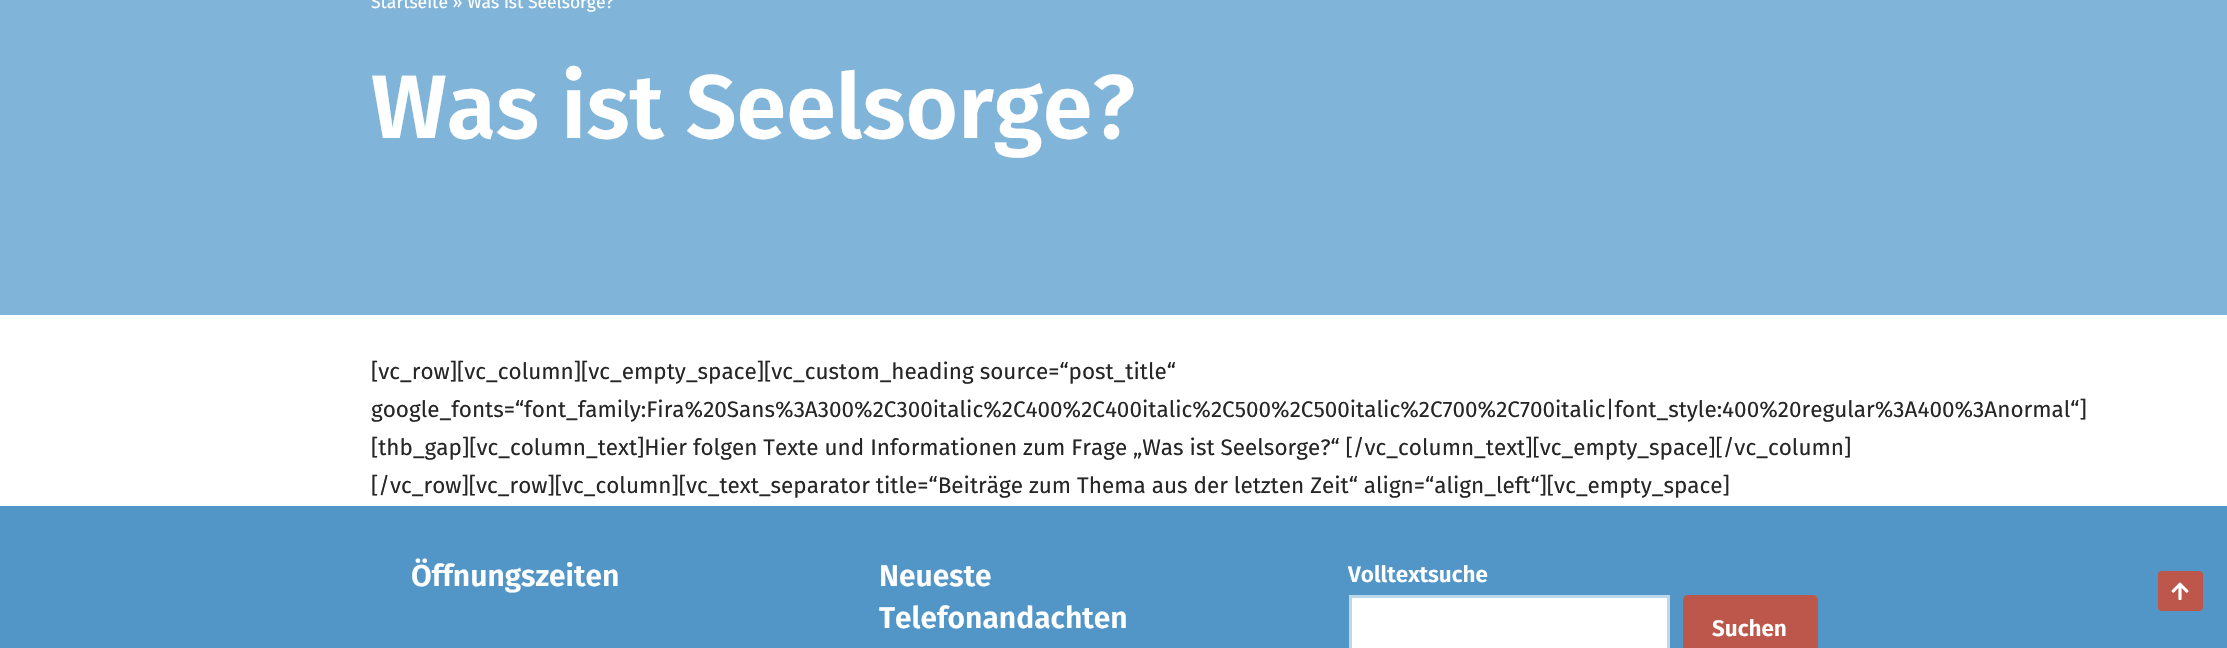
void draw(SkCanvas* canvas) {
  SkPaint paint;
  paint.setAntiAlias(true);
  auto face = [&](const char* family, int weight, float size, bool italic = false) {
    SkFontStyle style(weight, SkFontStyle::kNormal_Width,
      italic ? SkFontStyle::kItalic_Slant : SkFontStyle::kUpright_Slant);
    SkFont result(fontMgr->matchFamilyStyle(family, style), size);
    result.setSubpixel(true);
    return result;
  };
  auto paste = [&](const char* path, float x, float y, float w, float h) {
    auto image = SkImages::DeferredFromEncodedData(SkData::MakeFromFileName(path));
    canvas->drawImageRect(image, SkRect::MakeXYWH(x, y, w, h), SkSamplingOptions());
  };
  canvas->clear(0xffffffff);
  paint.setColor(0xff80b5d9);
  canvas->drawRect(SkRect::MakeXYWH(0, 0, 2227, 315), paint);
  paint.setColor(0xff5296c8);
  canvas->drawRect(SkRect::MakeXYWH(0, 506, 2227, 142), paint);
  paint.setColor(0xffffffff);
  canvas->drawRect(SkRect::MakeXYWH(1350.5f, 596.5f, 318, 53), paint);
  paint.setStroke(true);
  paint.setStrokeWidth(3);
  paint.setColor(0xffbcd7e9);
  canvas->drawRect(SkRect::MakeXYWH(1350.5f, 596.5f, 318, 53), paint);
  paint.setStroke(false);
  paint.setColor(0xffbe574b);
  canvas->drawRoundRect(SkRect::MakeXYWH(1683, 595, 135, 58), 5, 5, paint);
  canvas->drawRoundRect(SkRect::MakeXYWH(2158, 571, 45, 40), 4, 4, paint);
  paste("img/1.png", 2171, 582, 18, 18);
  auto f0 = face("Fira Sans", 400, 17.5f);
  paint.setColor(0xffffffff);
  canvas->drawString("Startseite » Was ist Seelsorge?", 371, 8, f0, paint);
  auto f1 = face("Fira Sans", 600, 90);
  canvas->drawString("Was ist Seelsorge?", 371, 138, f1, paint);
  auto f2 = face("Fira Sans", 400, 22.5f);
  paint.setColor(0xff272626);
  {
    const struct { const char* s; float x, y; } items[] = {
      {"[vc_row][vc_column][vc_empty_space][vc_custom_heading source=“post_title“", 371, 379},
      {"google_fonts=“font_family:Fira%20Sans%3A300%2C300italic%2C400%2C400italic%2C500%2C500italic%2C700%2C700italic|font_style:400%20regular%3A400%3Anormal“]", 371, 417},
      {"[thb_gap][vc_column_text]Hier folgen Texte und Informationen zum Frage „Was ist Seelsorge?“ [/vc_column_text][vc_empty_space][/vc_column]", 371, 455},
      {"[/vc_row][vc_row][vc_column][vc_text_separator title=“Beiträge zum Thema aus der letzten Zeit“ align=“align_left“][vc_empty_space]", 371, 493},
    };
    for (auto [s, x, y] : items) {
      canvas->drawString(s, x, y, f2, paint);
    }
  }
  auto f3 = face("Fira Sans", 600, 30);
  paint.setColor(0xffffffff);
  {
    const struct { const char* s; float x, y; } items[] = {
      {"Öffnungszeiten", 411, 586},
      {"Neueste", 879, 586},
      {"Telefonandachten", 879, 628},
    };
    for (auto [s, x, y] : items) {
      canvas->drawString(s, x, y, f3, paint);
    }
  }
  auto f4 = face("Fira Sans", 600, 22.5f);
  canvas->drawString("Volltextsuche", 1348, 582, f4, paint);
  canvas->drawString("Suchen", 1712, 636, f4, paint);
}
